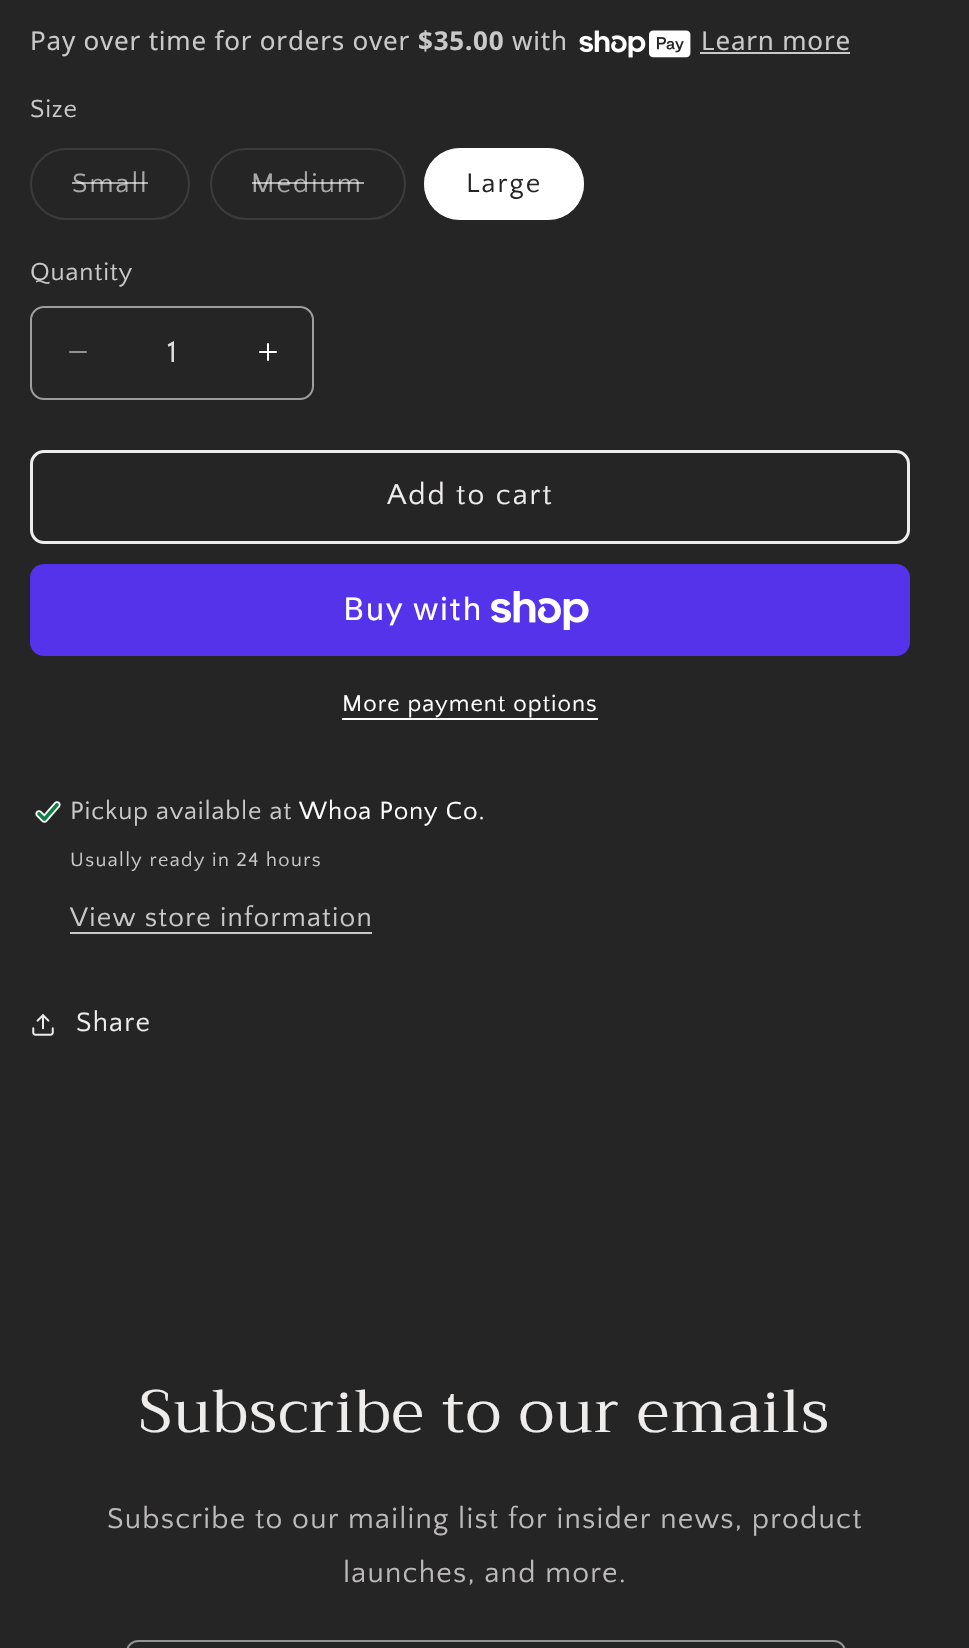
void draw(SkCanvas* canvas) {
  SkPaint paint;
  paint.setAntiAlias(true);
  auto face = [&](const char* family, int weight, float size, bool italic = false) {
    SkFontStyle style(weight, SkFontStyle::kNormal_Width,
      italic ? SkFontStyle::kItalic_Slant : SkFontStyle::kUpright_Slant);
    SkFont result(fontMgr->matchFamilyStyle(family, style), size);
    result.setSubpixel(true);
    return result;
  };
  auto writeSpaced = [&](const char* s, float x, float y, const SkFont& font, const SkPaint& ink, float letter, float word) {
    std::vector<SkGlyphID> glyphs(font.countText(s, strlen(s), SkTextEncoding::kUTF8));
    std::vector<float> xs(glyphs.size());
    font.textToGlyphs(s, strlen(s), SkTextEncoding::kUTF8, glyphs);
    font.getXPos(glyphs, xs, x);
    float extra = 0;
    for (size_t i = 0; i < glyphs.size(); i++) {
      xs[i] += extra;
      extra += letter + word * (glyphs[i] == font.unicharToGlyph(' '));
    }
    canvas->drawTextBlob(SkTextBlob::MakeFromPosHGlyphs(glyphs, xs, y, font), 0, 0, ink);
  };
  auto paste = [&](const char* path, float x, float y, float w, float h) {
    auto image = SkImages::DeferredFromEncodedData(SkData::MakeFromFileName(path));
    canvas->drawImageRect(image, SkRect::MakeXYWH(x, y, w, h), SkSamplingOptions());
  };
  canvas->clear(0xff252525);
  paste("img/1.png", 579, 30, 112, 28);
  paint.setColor(0xffc9c9c9);
  canvas->drawRect(SkRect::MakeXYWH(700, 52, 150, 2), paint);
  paint.setStroke(true);
  paint.setStrokeWidth(2);
  paint.setColor(0xff3b3b3b);
  canvas->drawRoundRect(SkRect::MakeXYWH(31, 149, 158, 70), 35, 35, paint);
  canvas->drawRoundRect(SkRect::MakeXYWH(211, 149, 194, 70), 35, 35, paint);
  paint.setStroke(false);
  paint.setColor(0xffffffff);
  canvas->drawRoundRect(SkRect::MakeXYWH(424, 148, 160, 72), 36, 36, paint);
  paint.setStroke(true);
  paint.setColor(0x8cffffff);
  canvas->drawRoundRect(SkRect::MakeXYWH(425, 149, 158, 70), 35, 35, paint);
  paste("img/2.png", 69, 351, 18, 2);
  paste("img/3.png", 259, 343, 18, 18);
  paint.setColor(0xff9d9d9d);
  canvas->drawRoundRect(SkRect::MakeXYWH(31, 307, 282, 92), 13, 13, paint);
  paint.setStrokeWidth(3);
  paint.setColor(0xffefecec);
  canvas->drawRoundRect(SkRect::MakeXYWH(31.5f, 451.5f, 877, 91), 12.5f, 12.5f, paint);
  paint.setStroke(false);
  paint.setColor(0xff5433eb);
  canvas->drawRoundRect(SkRect::MakeXYWH(30, 564, 880, 92), 14, 14, paint);
  paste("img/4.png", 491, 591, 98, 39);
  paint.setColor(0xffffffff);
  canvas->drawRect(SkRect::MakeXYWH(342, 718, 256, 2), paint);
  paste("img/5.png", 35, 801, 26, 22);
  paint.setColor(0xffc9c9c9);
  canvas->drawRect(SkRect::MakeXYWH(70, 932, 302, 2), paint);
  paste("img/6.png", 32, 1014, 22, 22);
  paint.setStroke(true);
  paint.setStrokeWidth(2);
  paint.setColor(0xff949292);
  canvas->drawRoundRect(SkRect::MakeXYWH(127, 1641, 718, 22), 13, 13, paint);
  auto f0 = face("Noto Sans", 400, 26);
  paint.setStroke(false);
  paint.setColor(0xffc9c9c9);
  writeSpaced("Pay over time for orders over", 30, 50, f0, paint, 0.8f, 0);
  auto f1 = face("Noto Sans", 700, 26);
  writeSpaced("$35.00", 418, 50, f1, paint, 0.8f, 0);
  writeSpaced("with", 512, 50, f0, paint, 0.8f, 0);
  writeSpaced("Learn more", 701, 50, f0, paint, 0.8f, 0);
  auto f2 = face("Quattrocento Sans", 400, 26);
  writeSpaced("Size", 30, 117, f2, paint, 0.8f, 0);
  auto f3 = face("Quattrocento Sans", 400, 28);
  paint.setColor(0xffa8a8a8);
  writeSpaced("Small", 72, 192, f3, paint, 2, 0);
  paint.setColor(0x99ffffff);
  canvas->drawRect(SkRect::MakeXYWH(72, 182, 76, 2), paint);
  paint.setColor(0xffa8a8a8);
  writeSpaced("Medium", 251, 192, f3, paint, 2, 0);
  paint.setColor(0x99ffffff);
  canvas->drawRect(SkRect::MakeXYWH(252, 182, 112, 2), paint);
  paint.setColor(0xff252525);
  writeSpaced("Large", 466, 192, f3, paint, 2, 0);
  paint.setColor(0xffc9c9c9);
  writeSpaced("Quantity", 30, 280, f2, paint, 0.8f, 0);
  auto f4 = face("Quattrocento Sans", 400, 32);
  paint.setColor(0xffdedede);
  canvas->drawString("1", 167, 362, f4, paint);
  auto f5 = face("Quattrocento Sans", 400, 30);
  paint.setColor(0xffefecec);
  writeSpaced("Add to cart", 387, 504, f5, paint, 2, 0);
  auto f6 = face("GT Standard", 400, 32);
  paint.setColor(0xffffffff);
  writeSpaced("Buy with", 343, 620, f6, paint, 1.2f, 0);
  auto f7 = face("Quattrocento Sans", 400, 24);
  writeSpaced("More payment options", 342, 711, f7, paint, 1, 0);
  paint.setColor(0xffc9c9c9);
  writeSpaced("Pickup available at", 70, 819, f2, paint, 0.8f, 0);
  paint.setColor(0xffffffff);
  writeSpaced("Whoa Pony Co.", 299, 819, f2, paint, 0.8f, 0);
  auto f8 = face("Quattrocento Sans", 400, 20);
  paint.setColor(0xffc9c9c9);
  writeSpaced("Usually ready in 24 hours", 70, 866, f8, paint, 1.4f, 0);
  writeSpaced("View store information", 70, 926, f3, paint, 1.2f, 0);
  paint.setColor(0xffefecec);
  writeSpaced("Share", 76, 1031, f3, paint, 1.2f, 0);
  auto f9 = face("Trirong", 400, 60);
  writeSpaced("Subscribe to our emails", 139, 1432, f9, paint, 1.2f, 0);
  paint.setColor(0xffbdbaba);
  writeSpaced("Subscribe to our mailing list for insider news, product", 107, 1528, f5, paint, 1.2f, 0);
  writeSpaced("launches, and more.", 343, 1582, f5, paint, 1.2f, 0);
}
